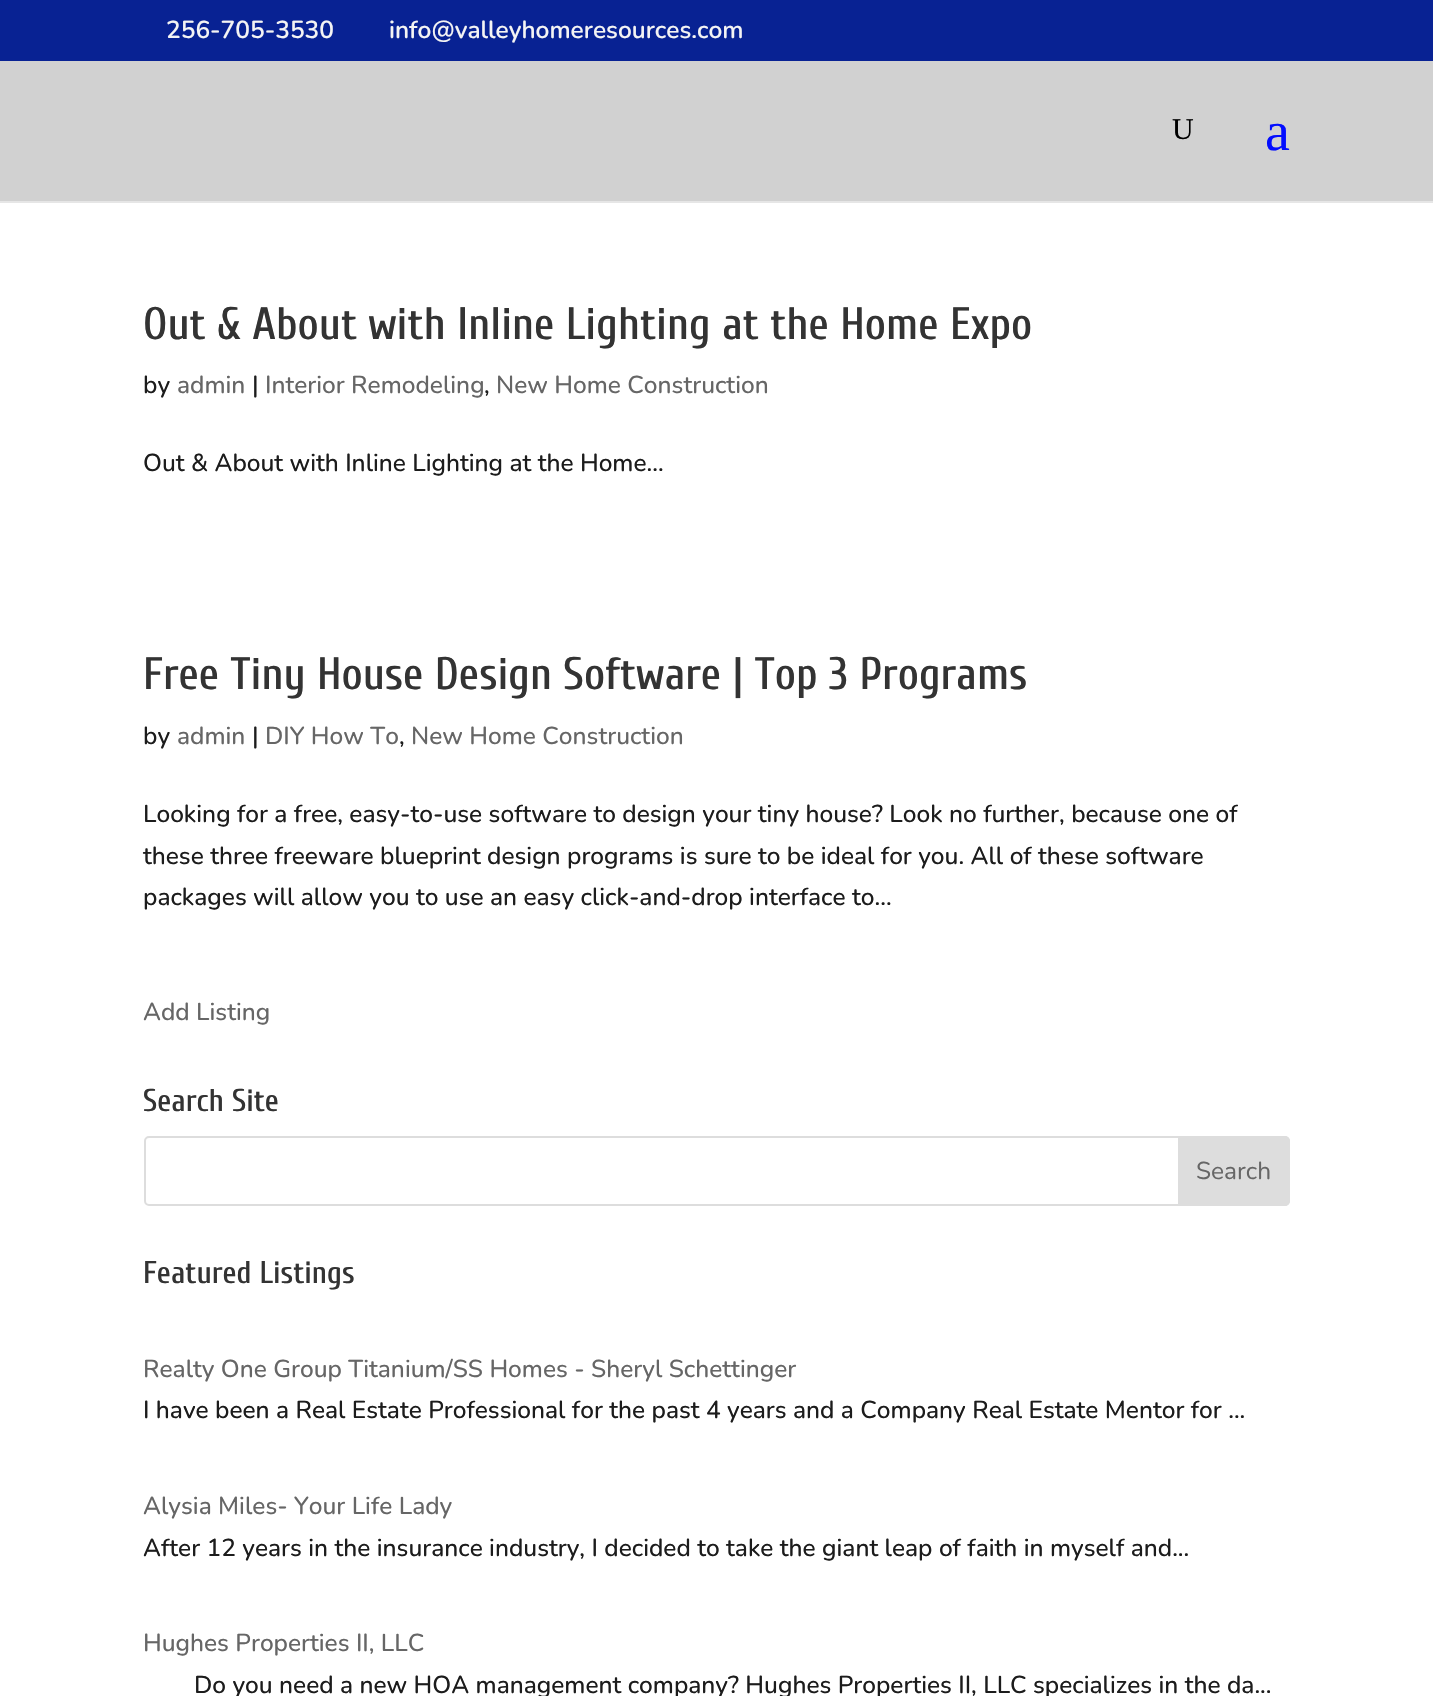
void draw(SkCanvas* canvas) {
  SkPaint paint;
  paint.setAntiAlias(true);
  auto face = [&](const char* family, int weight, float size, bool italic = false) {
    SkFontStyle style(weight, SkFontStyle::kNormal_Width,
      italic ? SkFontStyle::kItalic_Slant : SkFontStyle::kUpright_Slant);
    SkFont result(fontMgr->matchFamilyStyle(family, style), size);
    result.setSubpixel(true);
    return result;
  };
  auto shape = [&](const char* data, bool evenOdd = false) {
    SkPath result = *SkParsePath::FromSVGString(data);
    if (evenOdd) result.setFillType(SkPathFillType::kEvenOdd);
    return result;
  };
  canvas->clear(0xffffffff);
  {
    const struct { float x, y, w, h; SkColor color; } items[] = {
      {0, 0, 1433, 61, 0xff082293},
      {0, 201, 1433, 2, 0xffe6e6e6},
      {0, 61, 1433, 140, 0xffd1d1d1},
    };
    for (auto [x, y, w, h, color] : items) {
      paint.setColor(color);
      canvas->drawRect(SkRect::MakeXYWH(x, y, w, h), paint);
    }
  }
  paint.setStroke(true);
  paint.setStrokeWidth(2);
  paint.setColor(0xffdddddd);
  canvas->drawRoundRect(SkRect::MakeXYWH(145, 1137, 1144, 68), 4, 4, paint);
  paint.setStroke(false);
  canvas->drawPath(shape("M1179 1137H1285C1287 1137 1289 1139 1289 1141V1201C1289 1203 1287 1205 1285 1205H1179Z"), paint);
  paint.setStroke(true);
  canvas->drawPath(shape("M1179 1137H1285C1287 1137 1289 1139 1289 1141V1201C1289 1203 1287 1205 1285 1205H1179Z"), paint);
  auto f0 = face("Nunito", 600, 24.5f);
  paint.setStroke(false);
  paint.setColor(0xfff4f4f4);
  canvas->drawString("256-705-3530", 166, 38, f0, paint);
  canvas->drawString("info@valleyhomeresources.com", 389, 38, f0, paint);
  auto f1 = face("Liberation Serif", 400, 30);
  paint.setColor(0xff000000);
  canvas->drawString("U", 1172, 139, f1, paint);
  auto f2 = face("Liberation Serif", 400, 56);
  paint.setColor(0xff030dff);
  canvas->drawString("a", 1265, 150, f2, paint);
  auto f3 = face("Cuprum", 500, 45.5f);
  paint.setColor(0xff333333);
  canvas->drawString("Out & About with Inline Lighting at the Home Expo", 143, 339, f3, paint);
  auto f4 = face("Nunito", 500, 24.5f);
  paint.setColor(0xff1c1c1c);
  canvas->drawString("by", 143, 393, f4, paint);
  paint.setColor(0xff666666);
  canvas->drawString("admin", 177, 393, f4, paint);
  paint.setColor(0xff1c1c1c);
  canvas->drawString("|", 252, 393, f4, paint);
  paint.setColor(0xff666666);
  canvas->drawString("Interior Remodeling", 265, 393, f4, paint);
  paint.setColor(0xff1c1c1c);
  canvas->drawString(",", 484, 393, f4, paint);
  paint.setColor(0xff666666);
  canvas->drawString("New Home Construction", 496, 393, f4, paint);
  paint.setColor(0xff1c1c1c);
  canvas->drawString("Out & About with Inline Lighting at the Home...", 143, 471, f4, paint);
  paint.setColor(0xff333333);
  canvas->drawString("Free Tiny House Design Software | Top 3 Programs", 143, 689, f3, paint);
  paint.setColor(0xff1c1c1c);
  canvas->drawString("by", 143, 744, f4, paint);
  paint.setColor(0xff666666);
  canvas->drawString("admin", 177, 744, f4, paint);
  paint.setColor(0xff1c1c1c);
  canvas->drawString("|", 252, 744, f4, paint);
  paint.setColor(0xff666666);
  canvas->drawString("DIY How To", 265, 744, f4, paint);
  paint.setColor(0xff1c1c1c);
  canvas->drawString(",", 399, 744, f4, paint);
  paint.setColor(0xff666666);
  canvas->drawString("New Home Construction", 411, 744, f4, paint);
  paint.setColor(0xff1c1c1c);
  {
    const struct { const char* s; float x, y; } items[] = {
      {"Looking for a free, easy-to-use software to design your tiny house? Look no further, because one of", 143, 822},
      {"these three freeware blueprint design programs is sure to be ideal for you. All of these software", 143, 864},
      {"packages will allow you to use an easy click-and-drop interface to...", 143, 905},
    };
    for (auto [s, x, y] : items) {
      canvas->drawString(s, x, y, f4, paint);
    }
  }
  paint.setColor(0xff666666);
  canvas->drawString("Add Listing", 143, 1020, f4, paint);
  auto f5 = face("Cuprum", 500, 31.5f);
  paint.setColor(0xff333333);
  canvas->drawString("Search Site", 143, 1111, f5, paint);
  auto f6 = face("Nunito", 400, 24.5f);
  paint.setColor(0xff666666);
  canvas->drawString("Search", 1196, 1179, f6, paint);
  paint.setColor(0xff333333);
  canvas->drawString("Featured Listings", 143, 1283, f5, paint);
  paint.setColor(0xff666666);
  canvas->drawString("Realty One Group Titanium/SS Homes - Sheryl Schettinger", 143, 1377, f4, paint);
  paint.setColor(0xff1c1c1c);
  canvas->drawString("I have been a Real Estate Professional for the past 4 years and a Company Real Estate Mentor for ...", 143, 1418, f4, paint);
  paint.setColor(0xff666666);
  canvas->drawString("Alysia Miles- Your Life Lady", 143, 1514, f4, paint);
  paint.setColor(0xff1c1c1c);
  canvas->drawString("After 12 years in the insurance industry, I decided to take the giant leap of faith in myself and...", 143, 1556, f4, paint);
  paint.setColor(0xff666666);
  canvas->drawString("Hughes Properties II, LLC", 143, 1651, f4, paint);
  paint.setColor(0xff1c1c1c);
  canvas->drawString("Do you need a new HOA management company? Hughes Properties II, LLC specializes in the da...", 194, 1693, f4, paint);
}
